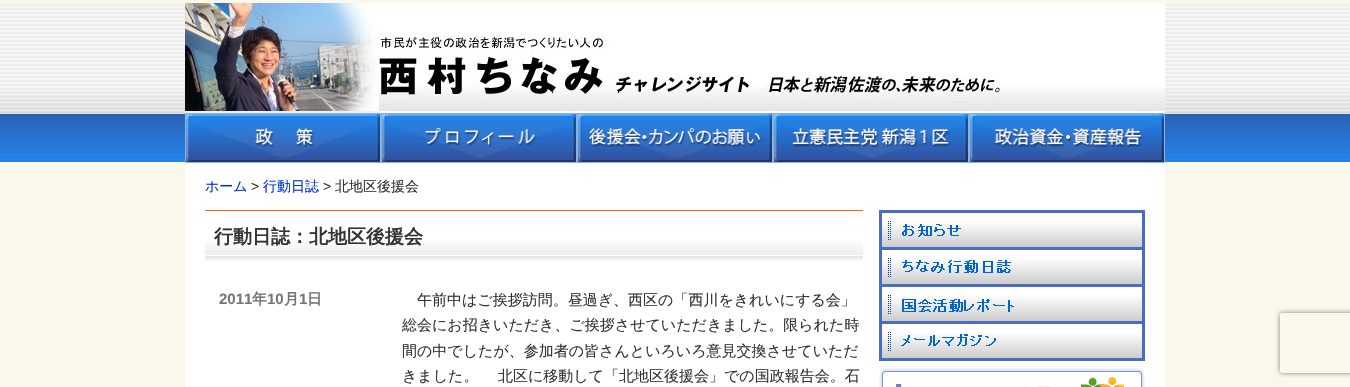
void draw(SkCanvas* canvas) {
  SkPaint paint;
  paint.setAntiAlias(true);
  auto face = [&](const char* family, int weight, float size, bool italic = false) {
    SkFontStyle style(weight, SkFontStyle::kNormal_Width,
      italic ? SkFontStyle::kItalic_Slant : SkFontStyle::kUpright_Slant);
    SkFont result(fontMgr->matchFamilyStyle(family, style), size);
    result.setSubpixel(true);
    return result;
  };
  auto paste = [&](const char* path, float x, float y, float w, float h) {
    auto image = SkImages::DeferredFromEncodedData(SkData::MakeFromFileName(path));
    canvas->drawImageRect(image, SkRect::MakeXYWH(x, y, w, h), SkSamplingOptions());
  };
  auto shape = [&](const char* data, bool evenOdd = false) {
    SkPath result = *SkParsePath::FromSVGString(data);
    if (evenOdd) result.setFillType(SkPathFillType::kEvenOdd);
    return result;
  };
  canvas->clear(0xfffaf7eb);
  paste("img/1.png", 0, 4, 1350, 158);
  paint.setColor(0xffffffff);
  canvas->drawRect(SkRect::MakeXYWH(185, 3, 980, 384), paint);
  paste("img/2.png", 753, 87, 412, 24);
  paste("img/3.png", 185, 3, 568, 110);
  paste("img/4.png", 765, 75, 235, 24);
  paint.setStroke(true);
  paint.setStrokeWidth(1);
  paint.setColor(0xff86b4e5);
  canvas->drawRect(SkRect::MakeXYWH(185.5f, 113.5f, 195, 49), paint);
  paste("img/5.png", 186, 114, 194, 48);
  canvas->drawRect(SkRect::MakeXYWH(381.5f, 113.5f, 195, 49), paint);
  paste("img/6.png", 382, 114, 194, 48);
  canvas->drawRect(SkRect::MakeXYWH(577.5f, 113.5f, 195, 49), paint);
  paste("img/7.png", 578, 114, 194, 48);
  canvas->drawRect(SkRect::MakeXYWH(773.5f, 113.5f, 195, 49), paint);
  paste("img/8.png", 774, 114, 194, 48);
  canvas->drawRect(SkRect::MakeXYWH(969.5f, 113.5f, 195, 49), paint);
  paste("img/9.png", 970, 114, 194, 48);
  paste("img/10.png", 205, 241, 658, 20);
  paint.setStroke(false);
  paint.setColor(0xffff6600);
  canvas->drawRect(SkRect::MakeXYWH(205, 210, 658, 1), paint);
  paint.setColor(0xff4a6dc4);
  canvas->drawRect(SkRect::MakeXYWH(879, 210, 266, 151), paint);
  paste("img/11.png", 882, 213, 260, 34);
  paste("img/12.png", 882, 250, 260, 34);
  paste("img/13.png", 882, 287, 260, 34);
  paste("img/14.png", 882, 324, 260, 34);
  paste("img/15.png", 879, 368, 266, 19);
  canvas->save();
  canvas->clipPath(shape("M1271 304H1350V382H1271ZM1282 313H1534C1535 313 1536 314 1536 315V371C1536 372 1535 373 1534 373H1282C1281 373 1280 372 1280 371V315C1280 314 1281 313 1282 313Z", true), true);
  paint.setColor(0xff808080);
  paint.setMaskFilter(SkMaskFilter::MakeBlur(kNormal_SkBlurStyle, 2.5f));
  canvas->drawRoundRect(SkRect::MakeXYWH(1280, 313, 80, 60), 2, 2, paint);
  paint.setMaskFilter(nullptr);
  canvas->restore();
  auto f0 = face("WenQuanYi Zen Hei", 500, 14);
  paint.setColor(0xff0033cc);
  canvas->drawString("ホーム", 205, 191, f0, paint);
  auto f1 = face("Liberation Sans", 400, 14);
  paint.setColor(0xff333333);
  canvas->drawString(">", 251, 191, f1, paint);
  paint.setColor(0xff0033cc);
  canvas->drawString("行動日誌", 263, 191, f0, paint);
  paint.setColor(0xff333333);
  canvas->drawString(">", 323, 191, f1, paint);
  canvas->drawString("北地区後援会", 335, 191, f0, paint);
  auto f2 = face("WenQuanYi Zen Hei", 700, 19);
  canvas->drawString("行動日誌：北地区後援会", 214, 243, f2, paint);
  auto f3 = face("Liberation Sans", 700, 15);
  paint.setColor(0xff777777);
  canvas->drawString("2011", 219, 304, f3, paint);
  auto f4 = face("WenQuanYi Zen Hei", 700, 15);
  canvas->drawString("年", 252, 304, f4, paint);
  canvas->drawString("10", 267, 304, f3, paint);
  canvas->drawString("月", 284, 304, f4, paint);
  canvas->drawString("1", 299, 304, f3, paint);
  canvas->drawString("日", 307, 304, f4, paint);
  auto f5 = face("WenQuanYi Zen Hei", 500, 15);
  paint.setColor(0xff333333);
  {
    const struct { const char* s; float x, y; } items[] = {
      {"午前中はご挨拶訪問。昼過ぎ、西区の「西川をきれいにする会」", 417, 305},
      {"総会にお招きいただき、ご挨拶させていただきました。限られた時", 402, 330},
      {"間の中でしたが、参加者の皆さんといろいろ意見交換させていただ", 402, 356},
      {"きました。 　北区に移動して「北地区後援会」での国政報告会。石", 402, 381},
    };
    for (auto [s, x, y] : items) {
      canvas->drawString(s, x, y, f5, paint);
    }
  }
}
